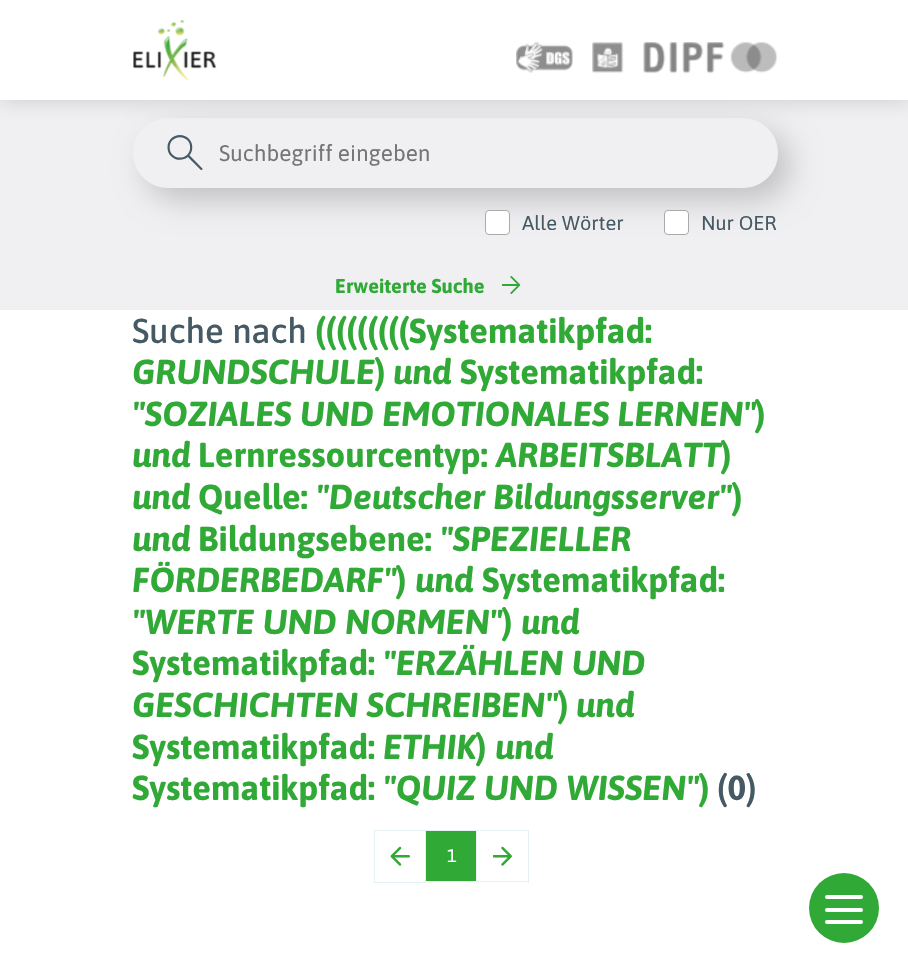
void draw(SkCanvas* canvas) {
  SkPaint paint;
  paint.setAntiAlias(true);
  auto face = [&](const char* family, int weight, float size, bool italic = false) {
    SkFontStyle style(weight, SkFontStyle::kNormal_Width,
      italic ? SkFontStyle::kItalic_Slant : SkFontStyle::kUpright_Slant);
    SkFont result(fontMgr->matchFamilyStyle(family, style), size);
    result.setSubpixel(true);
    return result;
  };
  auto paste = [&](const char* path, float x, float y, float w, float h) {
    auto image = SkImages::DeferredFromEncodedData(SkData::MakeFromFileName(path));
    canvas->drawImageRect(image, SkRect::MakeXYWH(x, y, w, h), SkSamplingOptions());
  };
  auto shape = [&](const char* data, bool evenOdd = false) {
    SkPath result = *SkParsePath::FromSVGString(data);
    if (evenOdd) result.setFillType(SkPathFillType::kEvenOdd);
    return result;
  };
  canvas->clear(0xffffffff);
  paint.setColor(0xfff0f0f3);
  canvas->drawRect(SkRect::MakeXYWH(0, 100, 908, 210), paint);
  paint.setColor(0x29121212);
  paint.setMaskFilter(SkMaskFilter::MakeBlur(kNormal_SkBlurStyle, 10));
  canvas->drawRect(SkRect::MakeXYWH(0, 1, 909, 100), paint);
  paint.setMaskFilter(nullptr);
  canvas->save();
  canvas->clipPath(shape("M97 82H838V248H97ZM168 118H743C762.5 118 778 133.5 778 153C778 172.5 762.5 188 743 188H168C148.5 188 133 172.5 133 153C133 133.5 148.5 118 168 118Z", true), true);
  paint.setColor(0xffc0c0c2);
  paint.setMaskFilter(SkMaskFilter::MakeBlur(kNormal_SkBlurStyle, 15.5f));
  canvas->drawRoundRect(SkRect::MakeXYWH(145, 130, 645, 70), 35, 35, paint);
  paint.setMaskFilter(nullptr);
  canvas->restore();
  paint.setColor(0xffffffff);
  canvas->drawRect(SkRect::MakeXYWH(0, 0, 908, 100), paint);
  paste("img/1.png", 133, 20, 84, 60);
  paste("img/2.png", 516, 42, 57, 31);
  paste("img/3.png", 592, 42, 32, 31);
  paste("img/4.png", 643, 42, 134, 32);
  paste("img/5.png", 167, 135, 36, 35);
  canvas->drawRoundRect(SkRect::MakeXYWH(485.5f, 210.5f, 24, 24), 3.5f, 3.5f, paint);
  paint.setStroke(true);
  paint.setStrokeWidth(1);
  paint.setColor(0xffaaaaaa);
  canvas->drawRoundRect(SkRect::MakeXYWH(485.5f, 210.5f, 24, 24), 3.5f, 3.5f, paint);
  paint.setStroke(false);
  paint.setColor(0xffffffff);
  canvas->drawRoundRect(SkRect::MakeXYWH(664.5f, 210.5f, 24, 24), 3.5f, 3.5f, paint);
  paint.setStroke(true);
  paint.setColor(0xffaaaaaa);
  canvas->drawRoundRect(SkRect::MakeXYWH(664.5f, 210.5f, 24, 24), 3.5f, 3.5f, paint);
  paste("img/6.png", 501, 276, 20, 18);
  paint.setColor(0xffe7f0f5);
  canvas->drawRect(SkRect::MakeXYWH(374.5f, 830.5f, 51, 52), paint);
  paste("img/7.png", 390, 846, 20, 20);
  paint.setStroke(false);
  {
    const struct { float x, y, w, h; SkColor color; } items[] = {
      {426, 830, 103, 1, 0xffe7f0f5},
      {476, 830, 1, 53, 0xffe7f0f5},
      {426, 881, 52, 1, 0xffe7f0f5},
      {426, 831, 50, 50, 0xff30a936},
      {528, 830, 1, 53, 0xffe7f0f5},
      {478, 881, 51, 1, 0xffe7f0f5},
    };
    for (auto [x, y, w, h, color] : items) {
      paint.setColor(color);
      canvas->drawRect(SkRect::MakeXYWH(x, y, w, h), paint);
    }
  }
  paste("img/8.png", 493, 846, 19, 20);
  paint.setColor(0xff30a936);
  canvas->drawCircle(844, 908, 35, paint);
  paint.setColor(0xffffffff);
  canvas->drawRoundRect(SkRect::MakeXYWH(825, 908, 38, 4), 2, 2, paint);
  canvas->drawRoundRect(SkRect::MakeXYWH(825, 895, 38, 4), 2, 2, paint);
  canvas->drawRoundRect(SkRect::MakeXYWH(825, 920, 38, 4), 2, 2, paint);
  auto f0 = face("Asap", 400, 22.5f);
  paint.setColor(0xff757575);
  canvas->drawString("Suchbegriff eingeben", 219, 161, f0, paint);
  auto f1 = face("Asap", 400, 20);
  paint.setColor(0xff455a64);
  canvas->drawString("Alle Wörter", 522, 230, f1, paint);
  canvas->drawString("Nur OER", 701, 230, f1, paint);
  auto f2 = face("Asap", 700, 20);
  paint.setColor(0xff30a936);
  canvas->drawString("Erweiterte Suche", 335, 293, f2, paint);
  auto f3 = face("Asap", 500, 34.7f);
  paint.setColor(0xff455a64);
  canvas->drawString("Suche nach", 132, 343, f3, paint);
  auto f4 = face("Asap", 900, 34.7f);
  paint.setColor(0xff30a936);
  canvas->drawString("(((((((((", 315, 343, f4, paint);
  auto f5 = face("Asap", 700, 34.7f);
  canvas->drawString("Systematikpfad:", 409, 343, f5, paint);
  auto f6 = face("Asap", 700, 34.7f, true);
  canvas->drawString("GRUNDSCHULE", 132, 384, f6, paint);
  canvas->drawString(")", 375, 384, f4, paint);
  canvas->drawString("und", 393, 384, f6, paint);
  canvas->drawString("Systematikpfad:", 460, 384, f5, paint);
  canvas->drawString("\"SOZIALES UND EMOTIONALES LERNEN\"", 132, 426, f6, paint);
  canvas->drawString(")", 755, 426, f4, paint);
  canvas->drawString("und", 132, 467, f6, paint);
  canvas->drawString("Lernressourcentyp:", 198, 467, f5, paint);
  canvas->drawString("ARBEITSBLATT", 496, 467, f6, paint);
  canvas->drawString(")", 721, 467, f4, paint);
  canvas->drawString("und", 132, 509, f6, paint);
  canvas->drawString("Quelle:", 198, 509, f5, paint);
  canvas->drawString("\"Deutscher Bildungsserver\"", 316, 509, f6, paint);
  canvas->drawString(")", 732, 509, f4, paint);
  canvas->drawString("und", 132, 551, f6, paint);
  canvas->drawString("Bildungsebene:", 198, 551, f5, paint);
  canvas->drawString("\"SPEZIELLER", 440, 551, f6, paint);
  canvas->drawString("FÖRDERBEDARF\"", 132, 592, f6, paint);
  canvas->drawString(")", 396, 592, f4, paint);
  canvas->drawString("und", 415, 592, f6, paint);
  canvas->drawString("Systematikpfad:", 482, 592, f5, paint);
  canvas->drawString("\"WERTE UND NORMEN\"", 132, 634, f6, paint);
  canvas->drawString(")", 502, 634, f4, paint);
  canvas->drawString("und", 521, 634, f6, paint);
  canvas->drawString("Systematikpfad:", 132, 675, f5, paint);
  canvas->drawString("\"ERZÄHLEN UND", 383, 675, f6, paint);
  canvas->drawString("GESCHICHTEN SCHREIBEN\"", 132, 717, f6, paint);
  canvas->drawString(")", 558, 717, f4, paint);
  canvas->drawString("und", 576, 717, f6, paint);
  canvas->drawString("Systematikpfad:", 132, 759, f5, paint);
  canvas->drawString("ETHIK", 383, 759, f6, paint);
  canvas->drawString(")", 476, 759, f4, paint);
  canvas->drawString("und", 495, 759, f6, paint);
  canvas->drawString("Systematikpfad:", 132, 800, f5, paint);
  canvas->drawString("\"QUIZ UND WISSEN\"", 383, 800, f6, paint);
  canvas->drawString(")", 699, 800, f4, paint);
  paint.setColor(0xff455a64);
  canvas->drawString("(0)", 717, 800, f5, paint);
  auto f7 = face("Asap", 400, 18);
  paint.setColor(0xffffffff);
  canvas->drawString("1", 447, 862, f7, paint);
}
